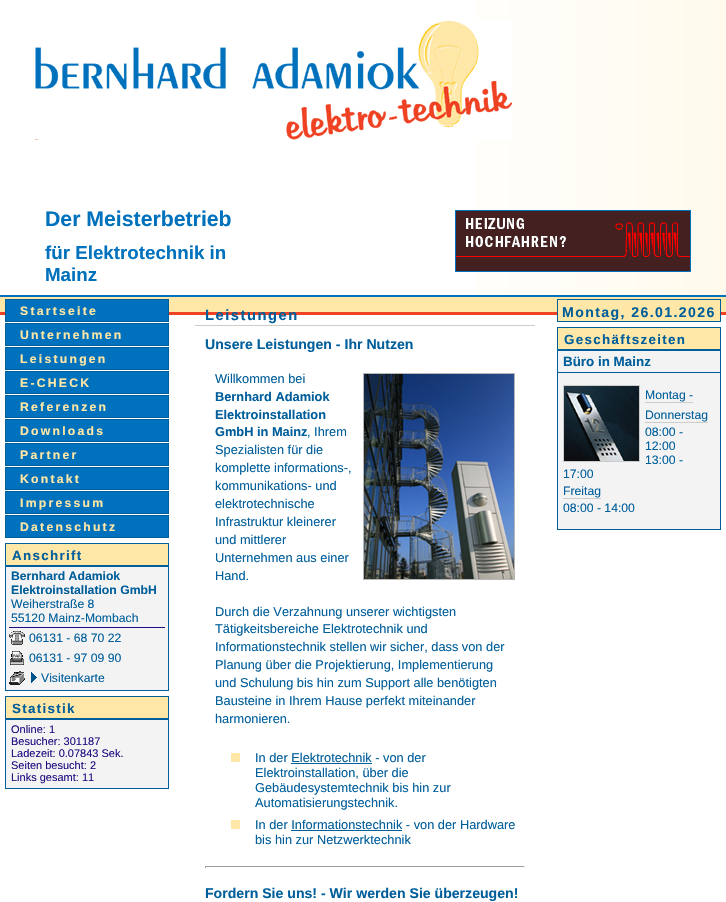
void draw(SkCanvas* canvas) {
  SkPaint paint;
  paint.setAntiAlias(true);
  auto face = [&](const char* family, int weight, float size, bool italic = false) {
    SkFontStyle style(weight, SkFontStyle::kNormal_Width,
      italic ? SkFontStyle::kItalic_Slant : SkFontStyle::kUpright_Slant);
    SkFont result(fontMgr->matchFamilyStyle(family, style), size);
    result.setSubpixel(true);
    return result;
  };
  auto writeSpaced = [&](const char* s, float x, float y, const SkFont& font, const SkPaint& ink, float letter, float word) {
    std::vector<SkGlyphID> glyphs(font.countText(s, strlen(s), SkTextEncoding::kUTF8));
    std::vector<float> xs(glyphs.size());
    font.textToGlyphs(s, strlen(s), SkTextEncoding::kUTF8, glyphs);
    font.getXPos(glyphs, xs, x);
    float extra = 0;
    for (size_t i = 0; i < glyphs.size(); i++) {
      xs[i] += extra;
      extra += letter + word * (glyphs[i] == font.unicharToGlyph(' '));
    }
    canvas->drawTextBlob(SkTextBlob::MakeFromPosHGlyphs(glyphs, xs, y, font), 0, 0, ink);
  };
  auto paste = [&](const char* path, float x, float y, float w, float h) {
    auto image = SkImages::DeferredFromEncodedData(SkData::MakeFromFileName(path));
    canvas->drawImageRect(image, SkRect::MakeXYWH(x, y, w, h), SkSamplingOptions());
  };
  canvas->clear(0xffffffff);
  paste("img/1.png", 475, 0, 251, 295);
  paste("img/2.png", 35, 20, 477, 120);
  paint.setStroke(true);
  paint.setStrokeWidth(1);
  paint.setColor(0xff0071bc);
  canvas->drawRect(SkRect::MakeXYWH(455.5f, 210.5f, 235, 61), paint);
  paste("img/3.png", 456, 211, 234, 60);
  paint.setStroke(false);
  {
    const struct { float x, y, w, h; SkColor color; } items[] = {
      {0, 297, 726, 15, 0xffffe7a7},
      {0, 295, 726, 2, 0xff0071bc},
      {0, 312, 726, 3, 0xffef4223},
    };
    for (auto [x, y, w, h, color] : items) {
      paint.setColor(color);
      canvas->drawRect(SkRect::MakeXYWH(x, y, w, h), paint);
    }
  }
  paint.setColor(0xff0071bc);
  canvas->drawRect(SkRect::MakeXYWH(5.5f, 299.5f, 163, 22), paint);
  paint.setStroke(true);
  paint.setColor(0xff005e9b);
  canvas->drawRect(SkRect::MakeXYWH(5.5f, 299.5f, 163, 22), paint);
  paint.setStroke(false);
  paint.setColor(0xff0071bc);
  canvas->drawRect(SkRect::MakeXYWH(5.5f, 323.5f, 163, 22), paint);
  paint.setStroke(true);
  paint.setColor(0xff005e9b);
  canvas->drawRect(SkRect::MakeXYWH(5.5f, 323.5f, 163, 22), paint);
  paint.setStroke(false);
  paint.setColor(0xff0071bc);
  canvas->drawRect(SkRect::MakeXYWH(5.5f, 347.5f, 163, 22), paint);
  paint.setStroke(true);
  paint.setColor(0xff005e9b);
  canvas->drawRect(SkRect::MakeXYWH(5.5f, 347.5f, 163, 22), paint);
  paint.setStroke(false);
  paint.setColor(0xff0071bc);
  canvas->drawRect(SkRect::MakeXYWH(5.5f, 371.5f, 163, 22), paint);
  paint.setStroke(true);
  paint.setColor(0xff005e9b);
  canvas->drawRect(SkRect::MakeXYWH(5.5f, 371.5f, 163, 22), paint);
  paint.setStroke(false);
  paint.setColor(0xff0071bc);
  canvas->drawRect(SkRect::MakeXYWH(5.5f, 395.5f, 163, 22), paint);
  paint.setStroke(true);
  paint.setColor(0xff005e9b);
  canvas->drawRect(SkRect::MakeXYWH(5.5f, 395.5f, 163, 22), paint);
  paint.setStroke(false);
  paint.setColor(0xff0071bc);
  canvas->drawRect(SkRect::MakeXYWH(5.5f, 419.5f, 163, 22), paint);
  paint.setStroke(true);
  paint.setColor(0xff005e9b);
  canvas->drawRect(SkRect::MakeXYWH(5.5f, 419.5f, 163, 22), paint);
  paint.setStroke(false);
  paint.setColor(0xff0071bc);
  canvas->drawRect(SkRect::MakeXYWH(5.5f, 443.5f, 163, 22), paint);
  paint.setStroke(true);
  paint.setColor(0xff005e9b);
  canvas->drawRect(SkRect::MakeXYWH(5.5f, 443.5f, 163, 22), paint);
  paint.setStroke(false);
  paint.setColor(0xff0071bc);
  canvas->drawRect(SkRect::MakeXYWH(5.5f, 467.5f, 163, 22), paint);
  paint.setStroke(true);
  paint.setColor(0xff005e9b);
  canvas->drawRect(SkRect::MakeXYWH(5.5f, 467.5f, 163, 22), paint);
  paint.setStroke(false);
  paint.setColor(0xff0071bc);
  canvas->drawRect(SkRect::MakeXYWH(5.5f, 491.5f, 163, 22), paint);
  paint.setStroke(true);
  paint.setColor(0xff005e9b);
  canvas->drawRect(SkRect::MakeXYWH(5.5f, 491.5f, 163, 22), paint);
  paint.setStroke(false);
  paint.setColor(0xff0071bc);
  canvas->drawRect(SkRect::MakeXYWH(5.5f, 515.5f, 163, 22), paint);
  paint.setStroke(true);
  paint.setColor(0xff005e9b);
  canvas->drawRect(SkRect::MakeXYWH(5.5f, 515.5f, 163, 22), paint);
  paint.setStroke(false);
  paint.setColor(0xfff3f3f4);
  canvas->drawRect(SkRect::MakeXYWH(6, 567, 162, 123), paint);
  paint.setStroke(true);
  paint.setColor(0xff005e9b);
  canvas->drawRect(SkRect::MakeXYWH(5.5f, 543.5f, 163, 147), paint);
  paint.setStroke(false);
  {
    const struct { float x, y, w, h; SkColor color; } items[] = {
      {6, 544, 162, 21, 0xffffe7a7},
      {5, 565, 164, 2, 0xff005e9b},
      {9, 627, 156, 1, 0xff1f0c80},
    };
    for (auto [x, y, w, h, color] : items) {
      paint.setColor(color);
      canvas->drawRect(SkRect::MakeXYWH(x, y, w, h), paint);
    }
  }
  paste("img/4.png", 9, 631, 16, 14);
  paste("img/5.png", 10, 651, 14, 14);
  paste("img/6.png", 9, 671, 16, 14);
  paste("img/7.png", 31, 672, 6, 11);
  paint.setColor(0xfff3f3f4);
  canvas->drawRect(SkRect::MakeXYWH(6, 720, 162, 68), paint);
  paint.setStroke(true);
  paint.setColor(0xff005e9b);
  canvas->drawRect(SkRect::MakeXYWH(5.5f, 696.5f, 163, 92), paint);
  paint.setStroke(false);
  {
    const struct { float x, y, w, h; SkColor color; } items[] = {
      {6, 697, 162, 21, 0xffffe7a7},
      {5, 718, 164, 2, 0xff005e9b},
      {195, 325, 340, 1, 0xffcccccc},
    };
    for (auto [x, y, w, h, color] : items) {
      paint.setColor(color);
      canvas->drawRect(SkRect::MakeXYWH(x, y, w, h), paint);
    }
  }
  paint.setStroke(true);
  paint.setColor(0xffb7b7b7);
  canvas->drawRect(SkRect::MakeXYWH(363.5f, 373.5f, 151, 206), paint);
  paste("img/8.png", 364, 374, 150, 205);
  paint.setStroke(false);
  {
    const struct { float x, y, w, h; SkColor color; } items[] = {
      {231, 753, 9, 9, 0xffffe7a7},
      {291, 763, 81, 1, 0xff005e9b},
      {231, 820, 9, 9, 0xffffe7a7},
      {291, 830, 111, 1, 0xff005e9b},
      {205, 866, 320, 1, 0xff9f9f9f},
      {524, 866, 1, 2, 0xffeeeeee},
      {205, 866, 1, 2, 0xff9f9f9f},
      {558, 312, 162, 9, 0xffffe7a7},
    };
    for (auto [x, y, w, h, color] : items) {
      paint.setColor(color);
      canvas->drawRect(SkRect::MakeXYWH(x, y, w, h), paint);
    }
  }
  paint.setStroke(true);
  paint.setColor(0xff005e9b);
  canvas->drawRect(SkRect::MakeXYWH(557.5f, 299.5f, 163, 22), paint);
  paint.setStroke(false);
  paint.setColor(0xfff3f3f4);
  canvas->drawRect(SkRect::MakeXYWH(558, 351, 162, 178), paint);
  paint.setStroke(true);
  paint.setColor(0xff005e9b);
  canvas->drawRect(SkRect::MakeXYWH(557.5f, 327.5f, 163, 202), paint);
  paint.setStroke(false);
  {
    const struct { float x, y, w, h; SkColor color; } items[] = {
      {558, 328, 162, 21, 0xffffe7a7},
      {557, 349, 164, 2, 0xff005e9b},
      {558, 372, 162, 1, 0xff005e9b},
    };
    for (auto [x, y, w, h, color] : items) {
      paint.setColor(color);
      canvas->drawRect(SkRect::MakeXYWH(x, y, w, h), paint);
    }
  }
  paint.setStroke(true);
  paint.setColor(0xffcccccc);
  canvas->drawRect(SkRect::MakeXYWH(563.5f, 385.5f, 76, 76), paint);
  paste("img/9.png", 564, 386, 75, 75);
  paint.setStroke(false);
  {
    const struct { float x, y, w, h; SkColor color; } items[] = {
      {645, 402, 48, 1, 0xffcccccc},
      {645, 422, 63, 1, 0xffcccccc},
      {563, 498, 38, 1, 0xffcccccc},
    };
    for (auto [x, y, w, h, color] : items) {
      paint.setColor(color);
      canvas->drawRect(SkRect::MakeXYWH(x, y, w, h), paint);
    }
  }
  auto f0 = face("Liberation Sans", 700, 21.25f);
  paint.setColor(0xff0071bc);
  canvas->drawString("Der Meisterbetrieb", 45, 226, f0, paint);
  auto f1 = face("Liberation Sans", 700, 18.75f);
  canvas->drawString("für Elektrotechnik in", 45, 259, f1, paint);
  canvas->drawString("Mainz", 45, 281, f1, paint);
  auto f2 = face("Liberation Sans", 700, 12.2f);
  paint.setColor(0xffffe7a7);
  {
    const struct { const char* s; float x, y; } items[] = {
      {"Startseite", 20, 315},
      {"Unternehmen", 20, 339},
      {"Leistungen", 20, 363},
      {"E-CHECK", 20, 387},
      {"Referenzen", 20, 411},
      {"Downloads", 20, 435},
      {"Partner", 20, 459},
      {"Kontakt", 20, 483},
      {"Impressum", 20, 507},
      {"Datenschutz", 20, 531},
    };
    for (auto [s, x, y] : items) {
      writeSpaced(s, x, y, f2, paint, 2.25f, 0);
    }
  }
  auto f3 = face("Liberation Sans", 700, 13.4f);
  paint.setColor(0xff005e9b);
  writeSpaced("Anschrift", 12, 560, f3, paint, 1.3f, 0);
  canvas->drawString("Bernhard Adamiok", 11, 580, f2, paint);
  canvas->drawString("Elektroinstallation GmbH", 11, 594, f2, paint);
  auto f4 = face("Liberation Sans", 400, 12.2f);
  {
    const struct { const char* s; float x, y; } items[] = {
      {"Weiherstraße 8", 11, 608},
      {"55120 Mainz-Mombach", 11, 622},
      {"06131 - 68 70 22", 29, 642},
      {"06131 - 97 09 90", 29, 662},
      {"Visitenkarte", 41, 682},
    };
    for (auto [s, x, y] : items) {
      canvas->drawString(s, x, y, f4, paint);
    }
  }
  writeSpaced("Statistik", 12, 713, f3, paint, 1.3f, 0);
  auto f5 = face("Liberation Sans", 400, 11);
  paint.setColor(0xff1f0c80);
  {
    const struct { const char* s; float x, y; } items[] = {
      {"Online: 1", 11, 733},
      {"Besucher: 301187", 11, 745},
      {"Ladezeit: 0.07843 Sek.", 11, 757},
      {"Seiten besucht: 2", 11, 769},
      {"Links gesamt: 11", 11, 781},
    };
    for (auto [s, x, y] : items) {
      canvas->drawString(s, x, y, f5, paint);
    }
  }
  auto f6 = face("Liberation Sans", 700, 14.75f);
  paint.setColor(0xff005e9b);
  writeSpaced("Leistungen", 205, 320, f6, paint, 1.5f, 0);
  auto f7 = face("Liberation Sans", 700, 14.1f);
  canvas->drawString("Unsere Leistungen - Ihr Nutzen", 205, 349, f7, paint);
  auto f8 = face("Liberation Sans", 400, 12.8f);
  canvas->drawString("Willkommen bei", 215, 383, f8, paint);
  auto f9 = face("Liberation Sans", 700, 12.8f);
  {
    const struct { const char* s; float x, y; } items[] = {
      {"Bernhard Adamiok", 215, 401},
      {"Elektroinstallation", 215, 419},
      {"GmbH in Mainz", 215, 436},
    };
    for (auto [s, x, y] : items) {
      canvas->drawString(s, x, y, f9, paint);
    }
  }
  {
    const struct { const char* s; float x, y; } items[] = {
      {", Ihrem", 307, 436},
      {"Spezialisten für die", 215, 454},
      {"komplette informations-,", 215, 472},
      {"kommunikations- und", 215, 490},
      {"elektrotechnische", 215, 508},
      {"Infrastruktur kleinerer", 215, 526},
      {"und mittlerer", 215, 544},
      {"Unternehmen aus einer", 215, 562},
      {"Hand.", 215, 580},
      {"Durch die Verzahnung unserer wichtigsten", 215, 616},
      {"Tätigkeitsbereiche Elektrotechnik und", 215, 633},
      {"Informationstechnik stellen wir sicher, dass von der", 215, 651},
      {"Planung über die Projektierung, Implementierung", 215, 669},
      {"und Schulung bis hin zum Support alle benötigten", 215, 687},
      {"Bausteine in Ihrem Hause perfekt miteinander", 215, 705},
      {"harmonieren.", 215, 723},
      {"In der Elektrotechnik - von der", 255, 762},
      {"Elektroinstallation, über die", 255, 777},
      {"Gebäudesystemtechnik bis hin zur", 255, 792},
      {"Automatisierungstechnik.", 255, 807},
      {"In der Informationstechnik - von der Hardware", 255, 829},
      {"bis hin zur Netzwerktechnik", 255, 844},
    };
    for (auto [s, x, y] : items) {
      canvas->drawString(s, x, y, f8, paint);
    }
  }
  canvas->drawString("Fordern Sie uns! - Wir werden Sie überzeugen!", 205, 898, f7, paint);
  writeSpaced("Montag, 26.01.2026", 562, 317, f7, paint, 1.4f, 0);
  writeSpaced("Geschäftszeiten", 564, 344, f3, paint, 1.3f, 0);
  canvas->drawString("Büro in Mainz", 563, 366, f3, paint);
  {
    const struct { const char* s; float x, y; } items[] = {
      {"Montag -", 645, 399},
      {"Donnerstag", 645, 419},
      {"08:00 -", 645, 436},
      {"12:00", 645, 450},
      {"13:00 -", 645, 464},
      {"17:00", 563, 478},
      {"Freitag", 563, 495},
      {"08:00 - 14:00", 563, 512},
    };
    for (auto [s, x, y] : items) {
      canvas->drawString(s, x, y, f4, paint);
    }
  }
}
